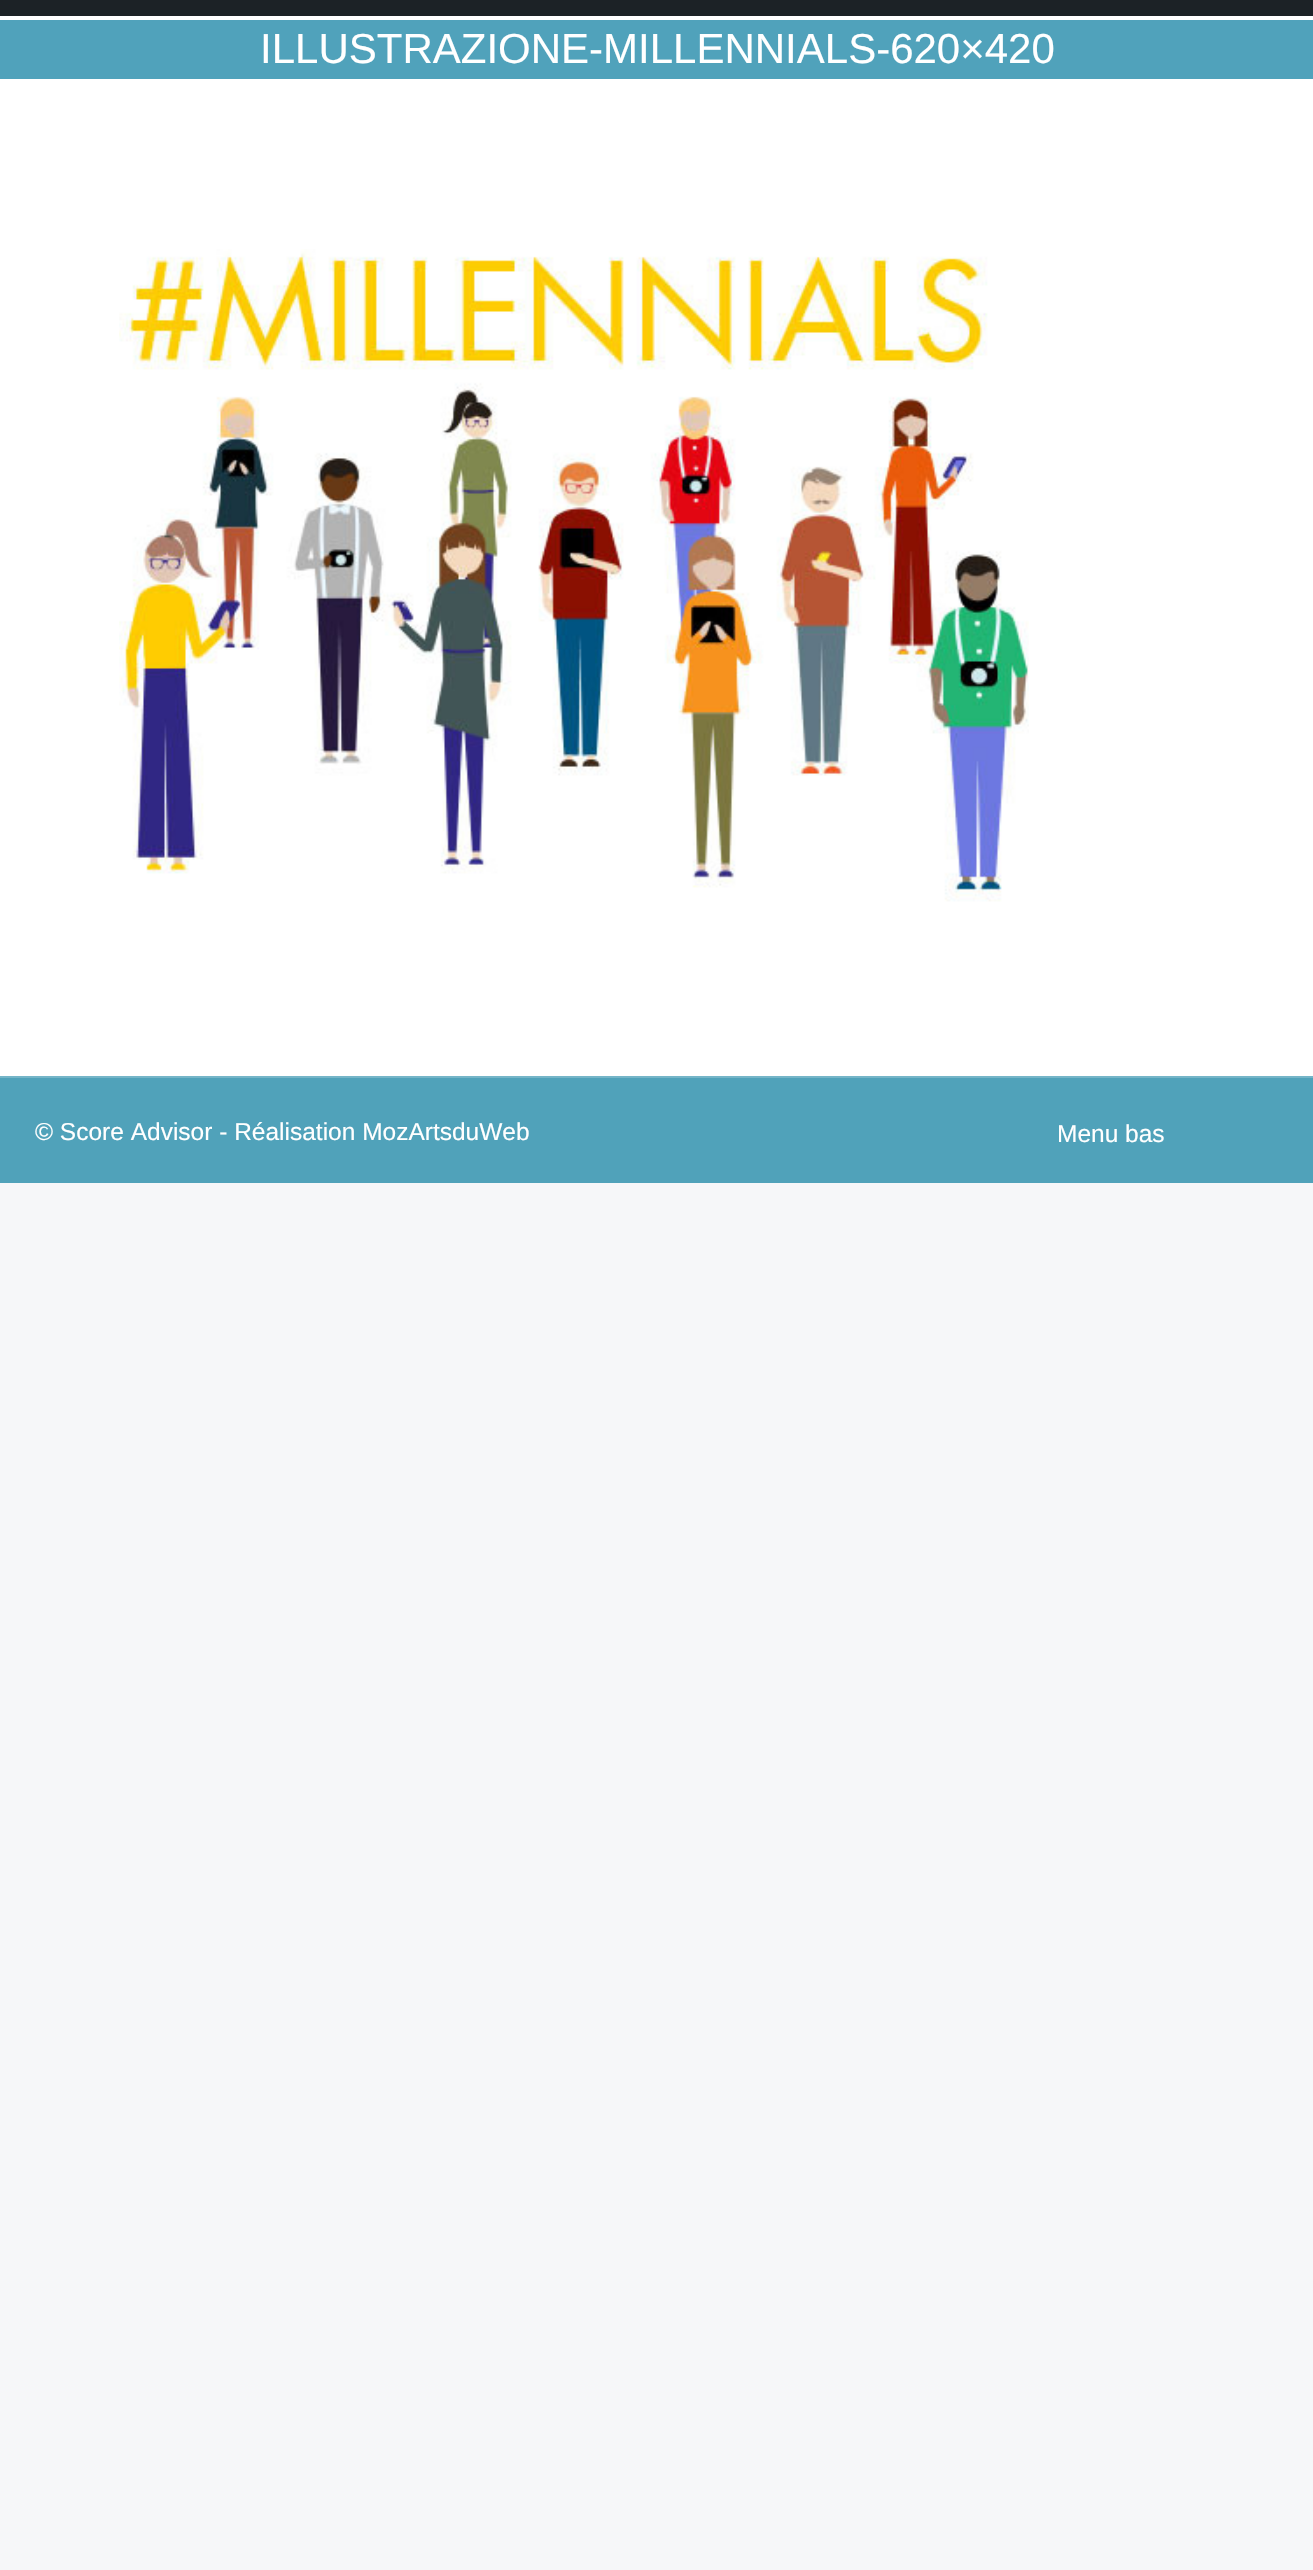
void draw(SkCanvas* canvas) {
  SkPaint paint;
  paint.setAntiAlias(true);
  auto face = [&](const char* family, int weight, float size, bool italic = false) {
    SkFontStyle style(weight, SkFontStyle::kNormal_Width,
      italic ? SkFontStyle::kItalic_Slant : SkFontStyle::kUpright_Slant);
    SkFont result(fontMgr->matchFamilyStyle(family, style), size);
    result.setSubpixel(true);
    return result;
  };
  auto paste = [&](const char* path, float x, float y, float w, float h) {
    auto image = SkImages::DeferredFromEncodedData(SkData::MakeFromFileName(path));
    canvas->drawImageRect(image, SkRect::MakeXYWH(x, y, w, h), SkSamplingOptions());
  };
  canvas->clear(0xfff6f7f9);
  {
    const struct { float x, y, w, h; SkColor color; } items[] = {
      {0, 79, 1313, 997, 0xffffffff},
      {0, 0, 1313, 16, 0xff1c2226},
      {0, 16, 1313, 4, 0xffffffff},
      {0, 20, 1313, 59, 0xff50a2bb},
    };
    for (auto [x, y, w, h, color] : items) {
      paint.setColor(color);
      canvas->drawRect(SkRect::MakeXYWH(x, y, w, h), paint);
    }
  }
  paste("img/1.png", 119, 249, 910, 653);
  paint.setColor(0xff75b5c8);
  canvas->drawRect(SkRect::MakeXYWH(0, 1076, 1313, 2), paint);
  paint.setColor(0xff50a2ba);
  canvas->drawRect(SkRect::MakeXYWH(0, 1078, 1313, 105), paint);
  auto f0 = face("Liberation Sans", 400, 42);
  paint.setColor(0xffffffff);
  canvas->drawString("ILLUSTRAZIONE-MILLENNIALS-620×420", 260, 63, f0, paint);
  auto f1 = face("Liberation Sans", 400, 24.5f);
  canvas->drawString("© Score Advisor - Réalisation MozArtsduWeb", 35, 1140, f1, paint);
  canvas->drawString("Menu bas", 1057, 1142, f1, paint);
}
